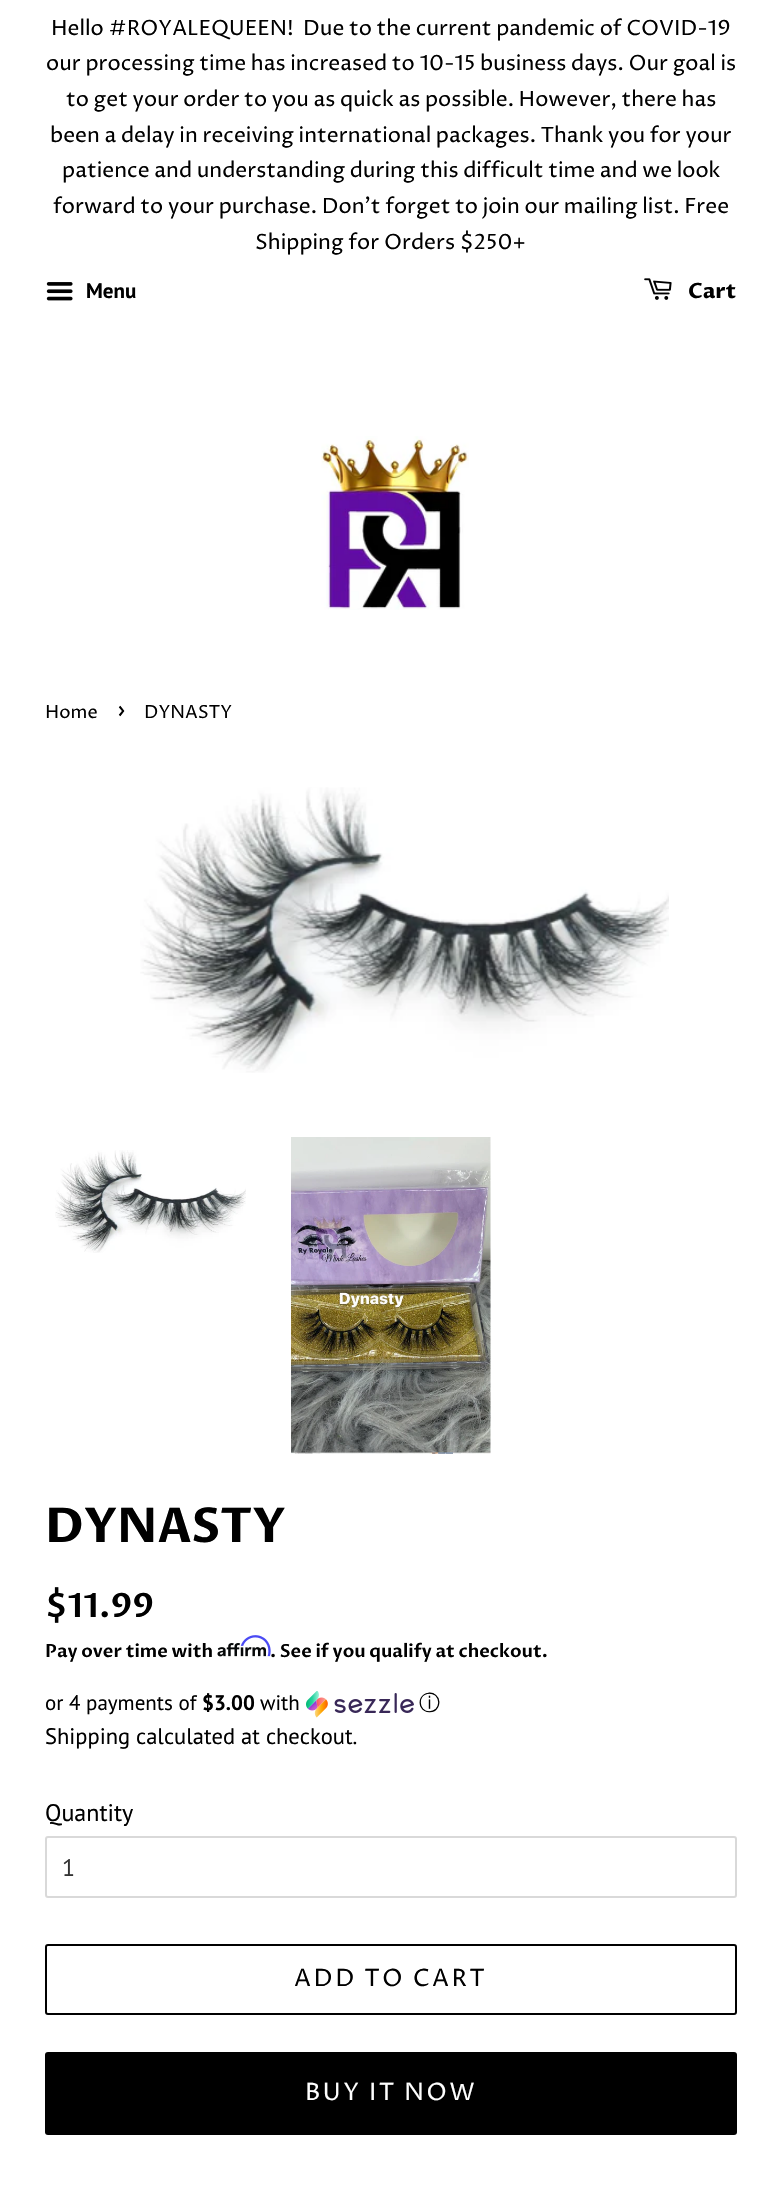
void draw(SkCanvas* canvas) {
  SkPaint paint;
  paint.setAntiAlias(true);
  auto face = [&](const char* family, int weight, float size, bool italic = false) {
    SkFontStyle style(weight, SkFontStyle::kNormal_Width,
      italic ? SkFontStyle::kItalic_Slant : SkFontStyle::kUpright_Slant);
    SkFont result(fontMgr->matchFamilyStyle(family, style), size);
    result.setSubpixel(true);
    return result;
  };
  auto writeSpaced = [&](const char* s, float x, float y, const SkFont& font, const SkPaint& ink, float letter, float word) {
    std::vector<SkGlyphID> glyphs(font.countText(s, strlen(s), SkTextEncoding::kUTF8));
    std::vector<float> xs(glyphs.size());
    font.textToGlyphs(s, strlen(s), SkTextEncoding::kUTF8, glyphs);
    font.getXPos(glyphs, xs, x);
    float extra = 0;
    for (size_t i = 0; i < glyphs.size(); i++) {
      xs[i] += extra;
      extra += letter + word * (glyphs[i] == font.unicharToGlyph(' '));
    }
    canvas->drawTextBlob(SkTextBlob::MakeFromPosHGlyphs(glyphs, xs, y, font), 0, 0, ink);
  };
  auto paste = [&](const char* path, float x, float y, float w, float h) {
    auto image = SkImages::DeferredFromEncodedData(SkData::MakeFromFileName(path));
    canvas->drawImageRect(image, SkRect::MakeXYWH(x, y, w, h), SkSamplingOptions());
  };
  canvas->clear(0xffffffff);
  paste("img/1.png", 46, 282, 27, 19);
  paste("img/2.png", 644, 278, 28, 22);
  paste("img/3.png", 321, 436, 148, 174);
  paste("img/4.png", 140, 787, 529, 286);
  paste("img/5.png", 55, 1150, 191, 103);
  paste("img/6.png", 291, 1137, 200, 317);
  paste("img/8.png", 217, 1643, 49, 14);
  paste("img/7.png", 240, 1635, 31, 22);
  paste("img/9.png", 306, 1691, 108, 27);
  paint.setStroke(true);
  paint.setStrokeWidth(2);
  paint.setColor(0xffd9d9d9);
  canvas->drawRoundRect(SkRect::MakeXYWH(46, 1837, 690, 60), 2, 2, paint);
  paint.setColor(0xff000000);
  canvas->drawRoundRect(SkRect::MakeXYWH(46, 1945, 690, 69), 2, 2, paint);
  paint.setStroke(false);
  canvas->drawRoundRect(SkRect::MakeXYWH(45, 2052, 692, 83), 3, 3, paint);
  auto f0 = face("Proza Libre", 400, 21);
  {
    const struct { const char* s; float x, y; } items[] = {
      {"Hello #ROYALEQUEEN!  Due to the current pandemic of COVID-19", 51, 35},
      {"our processing time has increased to 10-15 business days. Our goal is", 46, 70},
      {"to get your order to you as quick as possible. However, there has", 66, 106},
      {"been a delay in receiving international packages. Thank you for your", 50, 142},
      {"patience and understanding during this difficult time and we look", 62, 177},
      {"forward to your purchase. Don’t forget to join our mailing list. Free", 53, 213},
      {"Shipping for Orders $250+", 255, 249},
    };
    for (auto [s, x, y] : items) {
      canvas->drawString(s, x, y, f0, paint);
    }
  }
  auto f1 = face("PT Sans", 700, 21);
  canvas->drawString("Menu", 86, 298, f1, paint);
  auto f2 = face("Proza Libre", 700, 21);
  canvas->drawString("Cart", 688, 298, f2, paint);
  auto f3 = face("Proza Libre", 400, 18);
  canvas->drawString("Home", 45, 718, f3, paint);
  auto f4 = face("Proza Libre", 400, 25);
  canvas->drawString("›", 117, 718, f4, paint);
  canvas->drawString("DYNASTY", 144, 718, f3, paint);
  auto f5 = face("Proza Libre", 700, 48);
  canvas->drawString("DYNASTY", 45, 1542, f5, paint);
  auto f6 = face("Proza Libre", 600, 33.5f);
  canvas->drawString("$11.99", 45, 1617, f6, paint);
  auto f7 = face("Proza Libre", 600, 18);
  canvas->drawString("Pay over time with", 45, 1657, f7, paint);
  canvas->drawString(". See if you qualify at checkout.", 270, 1657, f7, paint);
  auto f8 = face("PT Sans", 400, 21);
  canvas->drawString("or 4 payments of", 45, 1710, f8, paint);
  canvas->drawString("$3.00", 202, 1710, f1, paint);
  canvas->drawString("with", 260, 1710, f8, paint);
  auto f9 = face("WenQuanYi Zen Hei", 500, 21);
  canvas->drawString("ⓘ", 419, 1710, f9, paint);
  auto f10 = face("PT Sans", 400, 22.5f);
  canvas->drawString("Shipping calculated at checkout.", 45, 1744, f10, paint);
  auto f11 = face("PT Sans", 400, 24);
  canvas->drawString("Quantity", 45, 1821, f11, paint);
  paint.setColor(0xff333333);
  canvas->drawString("1", 62, 1876, f11, paint);
  auto f12 = face("Proza Libre", 400, 24);
  paint.setColor(0xff000000);
  writeSpaced("ADD TO CART", 294, 1986, f12, paint, 2.4f, 0);
  paint.setColor(0xffffffff);
  writeSpaced("BUY IT NOW", 305, 2100, f12, paint, 2.4f, 0);
}
